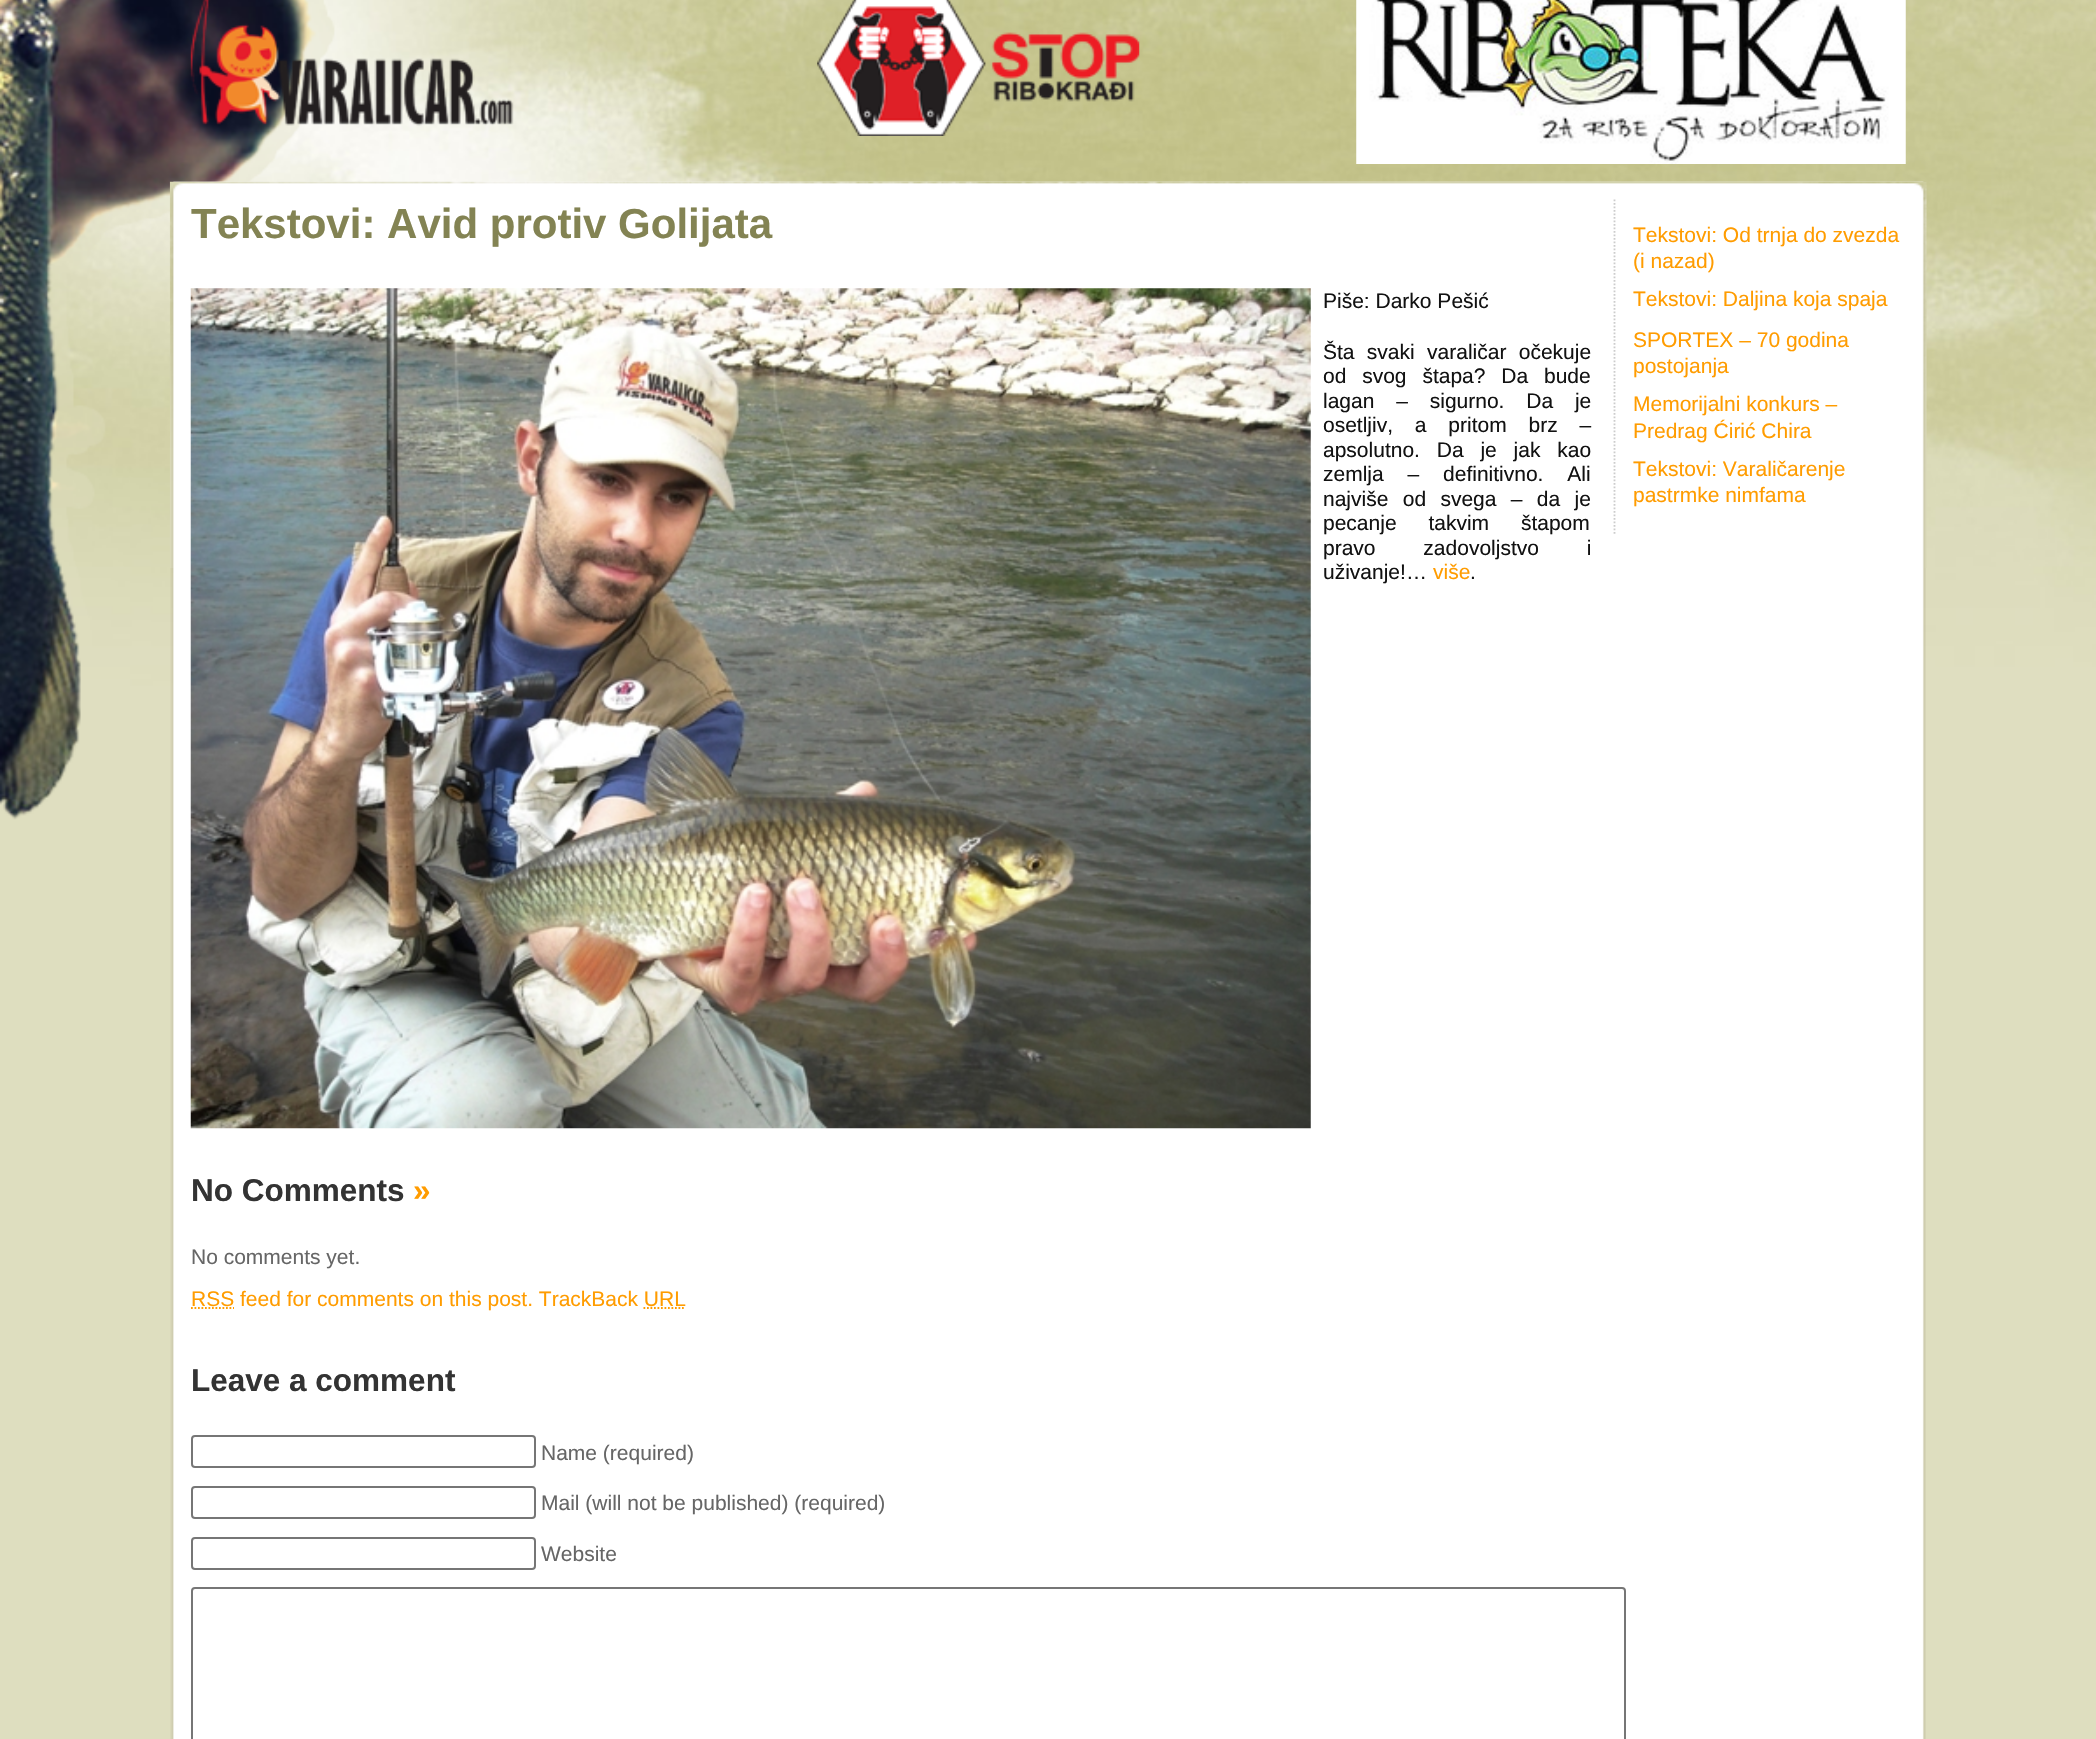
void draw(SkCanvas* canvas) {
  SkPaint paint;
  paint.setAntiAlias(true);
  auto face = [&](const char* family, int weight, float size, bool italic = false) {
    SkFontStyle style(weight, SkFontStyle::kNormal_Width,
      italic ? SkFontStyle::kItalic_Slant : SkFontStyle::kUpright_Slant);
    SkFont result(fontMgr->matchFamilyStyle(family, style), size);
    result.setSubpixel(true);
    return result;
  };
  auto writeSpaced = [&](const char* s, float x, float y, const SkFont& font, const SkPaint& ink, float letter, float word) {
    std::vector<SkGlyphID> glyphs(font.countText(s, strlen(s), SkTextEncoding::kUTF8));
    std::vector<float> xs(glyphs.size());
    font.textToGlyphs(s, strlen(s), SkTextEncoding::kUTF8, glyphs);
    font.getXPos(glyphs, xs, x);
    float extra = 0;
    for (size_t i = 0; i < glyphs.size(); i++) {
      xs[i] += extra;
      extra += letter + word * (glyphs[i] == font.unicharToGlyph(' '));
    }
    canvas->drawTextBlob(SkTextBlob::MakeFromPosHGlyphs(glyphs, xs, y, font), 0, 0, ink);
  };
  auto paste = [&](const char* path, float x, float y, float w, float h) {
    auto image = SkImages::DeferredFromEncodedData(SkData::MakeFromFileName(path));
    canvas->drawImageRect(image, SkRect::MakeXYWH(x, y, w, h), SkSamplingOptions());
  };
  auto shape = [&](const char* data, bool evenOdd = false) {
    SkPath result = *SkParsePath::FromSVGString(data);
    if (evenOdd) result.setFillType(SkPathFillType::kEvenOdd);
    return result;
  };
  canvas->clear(0xffdedebf);
  paste("img/1.png", 0, 0, 2096, 820);
  paste("img/2.png", 190, 0, 324, 126);
  paste("img/3.png", 817, 0, 323, 136);
  paste("img/4.png", 1356, 0, 550, 164);
  paste("img/5.png", 170, 181, 1756, 1558);
  paste("img/6.png", 169, 181, 1758, 387);
  paste("img/7.png", 190, 288, 1121, 841);
  paint.setStroke(true);
  paint.setStrokeWidth(1.8f);
  paint.setColor(0xffcccccc);
  paint.setPathEffect(SkDashPathEffect::Make({{1.75f, 1.75f}}, 0));
  canvas->drawPath(shape("M1614.5 199.5V534"), paint);
  paint.setPathEffect(nullptr);
  paint.setColor(0xffff9c00);
  paint.setPathEffect(SkDashPathEffect::Make({{1.75f, 1.75f}}, 0));
  canvas->drawPath(shape("M191 1308H234"), paint);
  paint.setPathEffect(nullptr);
  paint.setPathEffect(SkDashPathEffect::Make({{1.75f, 1.75f}}, 0));
  canvas->drawPath(shape("M643.5 1308H685.5"), paint);
  paint.setPathEffect(nullptr);
  paint.setStrokeWidth(2);
  paint.setColor(0xff767676);
  canvas->drawRoundRect(SkRect::MakeXYWH(192, 1436, 343, 31), 3, 3, paint);
  canvas->drawRoundRect(SkRect::MakeXYWH(192, 1487, 343, 31), 3, 3, paint);
  canvas->drawRoundRect(SkRect::MakeXYWH(192, 1538, 343, 31), 3, 3, paint);
  canvas->drawRoundRect(SkRect::MakeXYWH(192, 1588, 1433, 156), 3, 3, paint);
  auto f0 = face("Liberation Sans", 700, 42);
  paint.setStroke(false);
  paint.setColor(0xff838353);
  canvas->drawString("Tekstovi: Avid protiv Golijata", 191, 238, f0, paint);
  auto f1 = face("Liberation Sans", 400, 21);
  paint.setColor(0xff121212);
  canvas->drawString("Piše: Darko Pešić", 1323, 308, f1, paint);
  writeSpaced("Šta svaki varaličar očekuje", 1323, 359, f1, paint, 0, 6.5f);
  writeSpaced("od svog štapa? Da bude", 1323, 383, f1, paint, 0, 10);
  writeSpaced("lagan – sigurno. Da je", 1323, 408, f1, paint, 0, 16);
  writeSpaced("osetljiv, a pritom brz –", 1323, 432, f1, paint, 0, 16);
  writeSpaced("apsolutno. Da je jak kao", 1323, 457, f1, paint, 0, 11);
  writeSpaced("zemlja – definitivno. Ali", 1323, 481, f1, paint, 0, 18);
  writeSpaced("najviše od svega – da je", 1323, 506, f1, paint, 0, 8.5f);
  writeSpaced("pecanje takvim štapom", 1323, 530, f1, paint, 0, 26);
  writeSpaced("pravo zadovoljstvo i", 1323, 555, f1, paint, 0, 42);
  canvas->drawString("uživanje!…", 1323, 579, f1, paint);
  paint.setColor(0xffff9c00);
  canvas->drawString("više", 1433, 579, f1, paint);
  paint.setColor(0xff121212);
  canvas->drawString(".", 1470, 579, f1, paint);
  paint.setColor(0xffff9c00);
  {
    const struct { const char* s; float x, y; } items[] = {
      {"Tekstovi: Od trnja do zvezda", 1633, 242},
      {"(i nazad)", 1633, 268},
      {"Tekstovi: Daljina koja spaja", 1633, 306},
      {"SPORTEX – 70 godina", 1633, 347},
      {"postojanja", 1633, 373},
      {"Memorijalni konkurs –", 1633, 411},
      {"Predrag Ćirić Chira", 1633, 438},
      {"Tekstovi: Varaličarenje", 1633, 476},
      {"pastrmke nimfama", 1633, 502},
    };
    for (auto [s, x, y] : items) {
      canvas->drawString(s, x, y, f1, paint);
    }
  }
  auto f2 = face("Liberation Sans", 700, 31.5f);
  paint.setColor(0xff333333);
  canvas->drawString("No Comments", 191, 1201, f2, paint);
  paint.setColor(0xffff9c00);
  canvas->drawString("»", 413, 1201, f2, paint);
  paint.setColor(0xff666666);
  canvas->drawString("No comments yet.", 191, 1264, f1, paint);
  paint.setColor(0xffff9c00);
  canvas->drawString("RSS feed for comments on this post. TrackBack URL", 191, 1306, f1, paint);
  paint.setColor(0xff333333);
  canvas->drawString("Leave a comment", 191, 1391, f2, paint);
  paint.setColor(0xff666666);
  {
    const struct { const char* s; float x, y; } items[] = {
      {"Name (required)", 541, 1460},
      {"Mail (will not be published) (required)", 541, 1510},
      {"Website", 541, 1561},
    };
    for (auto [s, x, y] : items) {
      canvas->drawString(s, x, y, f1, paint);
    }
  }
}
